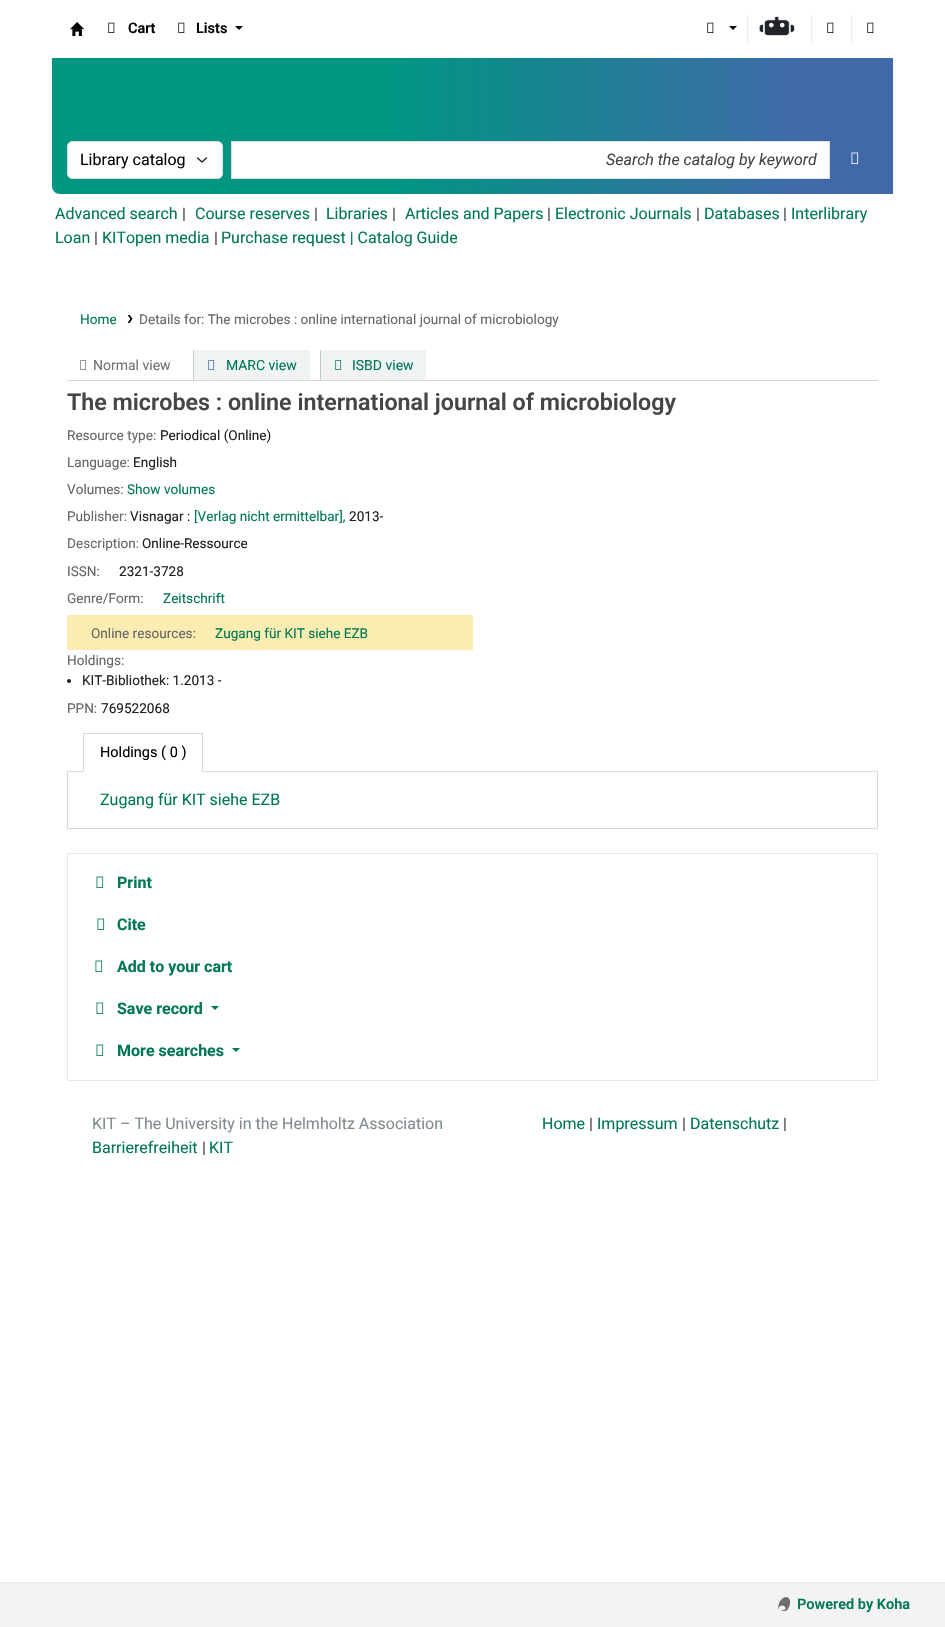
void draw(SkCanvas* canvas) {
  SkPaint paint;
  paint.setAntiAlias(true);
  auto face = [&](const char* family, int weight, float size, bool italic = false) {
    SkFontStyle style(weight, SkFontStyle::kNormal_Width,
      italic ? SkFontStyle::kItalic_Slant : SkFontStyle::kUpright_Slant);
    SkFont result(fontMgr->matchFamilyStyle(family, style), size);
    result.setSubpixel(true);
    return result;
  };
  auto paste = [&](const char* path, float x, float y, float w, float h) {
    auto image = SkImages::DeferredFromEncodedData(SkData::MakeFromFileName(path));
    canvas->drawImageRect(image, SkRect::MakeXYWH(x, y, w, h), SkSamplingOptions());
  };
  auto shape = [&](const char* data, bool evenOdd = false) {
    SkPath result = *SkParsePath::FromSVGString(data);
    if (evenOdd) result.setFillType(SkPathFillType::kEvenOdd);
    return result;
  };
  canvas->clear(0xffffffff);
  paste("img/1.png", 70, 22, 14, 14);
  paste("img/2.png", 108, 22, 7, 11);
  paste("img/2.png", 178, 22, 7, 11);
  paint.setColor(0xff000000);
  canvas->drawPath(shape("M235 26H243L239 30Z"), paint);
  paste("img/2.png", 707, 22, 7, 11);
  canvas->drawPath(shape("M729 26H737L733 30Z"), paint);
  {
    const struct { float x, y, w, h; SkColor color; } items[] = {
      {748, 15, 1, 28, 0xfffcf9fc},
      {747, 42, 2, 1, 0xffeeeeee},
      {747, 15, 1, 28, 0xffeeeeee},
    };
    for (auto [x, y, w, h, color] : items) {
      paint.setColor(color);
      canvas->drawRect(SkRect::MakeXYWH(x, y, w, h), paint);
    }
  }
  paste("img/3.png", 759, 16, 36, 20);
  {
    const struct { float x, y, w, h; SkColor color; } items[] = {
      {812, 15, 1, 28, 0xfffcf9fc},
      {811, 42, 2, 1, 0xffeeeeee},
      {811, 15, 1, 28, 0xffeeeeee},
    };
    for (auto [x, y, w, h, color] : items) {
      paint.setColor(color);
      canvas->drawRect(SkRect::MakeXYWH(x, y, w, h), paint);
    }
  }
  paste("img/2.png", 827, 22, 7, 11);
  {
    const struct { float x, y, w, h; SkColor color; } items[] = {
      {852, 15, 1, 28, 0xfffcf9fc},
      {851, 42, 2, 1, 0xffeeeeee},
      {851, 15, 1, 28, 0xffeeeeee},
    };
    for (auto [x, y, w, h, color] : items) {
      paint.setColor(color);
      canvas->drawRect(SkRect::MakeXYWH(x, y, w, h), paint);
    }
  }
  paste("img/2.png", 867, 22, 7, 11);
  {
    const SkColor colors[] = {0xff009682, 0xff4169aa};
    const float stops[] = {0.4f, 0.9f};
    const SkPoint ends[] = {{52, 92}, {893, 92}};
    paint.setShader(SkGradientShader::MakeLinear(ends, colors, stops, 2, SkTileMode::kClamp));
    paint.setAlpha(255);
  }
  canvas->drawRect(SkRect::MakeXYWH(52, 58, 841, 68), paint);
  {
    const SkColor colors[] = {0xff009682, 0xff4169aa};
    const float stops[] = {0.4f, 0.9f};
    const SkPoint ends[] = {{52, 160}, {893, 160}};
    paint.setShader(SkGradientShader::MakeLinear(ends, colors, stops, 2, SkTileMode::kClamp));
    paint.setAlpha(255);
  }
  canvas->drawPath(shape("M52 126H893V194H60C55.5 194 52 190.5 52 186Z"), paint);
  paint.setShader(nullptr);
  paint.setColor(0xffffffff);
  canvas->drawRoundRect(SkRect::MakeXYWH(67, 141, 156, 38), 6, 6, paint);
  paint.setStroke(true);
  paint.setStrokeWidth(1.5f);
  paint.setStrokeCap(SkPaint::kRound_Cap);
  paint.setStrokeJoin(SkPaint::kRound_Join);
  paint.setColor(0xff252525);
  canvas->drawPath(shape("M197.5 158L202 162L206.5 158"), paint);
  paint.setStrokeWidth(1);
  paint.setStrokeCap(SkPaint::kButt_Cap);
  paint.setStrokeJoin(SkPaint::kMiter_Join);
  paint.setColor(0xffdddddd);
  canvas->drawRoundRect(SkRect::MakeXYWH(67.5f, 141.5f, 155, 37), 5.5f, 5.5f, paint);
  paint.setStroke(false);
  paint.setColor(0xffffffff);
  canvas->drawRect(SkRect::MakeXYWH(231.5f, 141.5f, 598, 37), paint);
  paint.setStroke(true);
  paint.setColor(0xffdddddd);
  canvas->drawRect(SkRect::MakeXYWH(231.5f, 141.5f, 598, 37), paint);
  paste("img/4.png", 851, 152, 8, 12);
  paste("img/5.png", 127, 315, 6, 8);
  paint.setStroke(false);
  paint.setColor(0xffd6d6d6);
  canvas->drawRect(SkRect::MakeXYWH(67, 380, 811, 1), paint);
  paste("img/6.png", 80, 360, 7, 10);
  paint.setColor(0xfff0f3f3);
  canvas->drawRect(SkRect::MakeXYWH(194, 350, 116, 30), paint);
  paint.setColor(0xffc9c9c9);
  canvas->drawRect(SkRect::MakeXYWH(193, 350, 1, 30), paint);
  paste("img/7.png", 208, 360, 7, 10);
  paint.setColor(0xfff0f3f3);
  canvas->drawRect(SkRect::MakeXYWH(321, 350, 105, 30), paint);
  paint.setColor(0xffc9c9c9);
  canvas->drawRect(SkRect::MakeXYWH(320, 350, 1, 30), paint);
  paste("img/8.png", 335, 360, 7, 10);
  paint.setColor(0xfffbedb1);
  canvas->drawRect(SkRect::MakeXYWH(67, 615, 406, 35), paint);
  paint.setColor(0xff202020);
  canvas->drawCircle(69, 681, 2, paint);
  {
    const struct { float x, y, w, h; SkColor color; } items[] = {
      {67, 771, 811, 1, 0xffdddddd},
      {83, 771, 120, 1, 0xffffffff},
      {83, 733, 120, 1, 0xffd8d8d8},
    };
    for (auto [x, y, w, h, color] : items) {
      paint.setColor(color);
      canvas->drawRect(SkRect::MakeXYWH(x, y, w, h), paint);
    }
  }
  canvas->drawPath(shape("M203 733V772L202 771V734Z"), paint);
  canvas->drawPath(shape("M83 772V733L84 734V771Z"), paint);
  {
    const struct { float x, y, w, h; SkColor color; } items[] = {
      {877, 772, 1, 57, 0xffd8d8d8},
      {67, 828, 811, 1, 0xffd8d8d8},
      {67, 772, 1, 57, 0xffd8d8d8},
    };
    for (auto [x, y, w, h, color] : items) {
      paint.setColor(color);
      canvas->drawRect(SkRect::MakeXYWH(x, y, w, h), paint);
    }
  }
  paint.setStroke(true);
  paint.setColor(0xffe8e8e8);
  canvas->drawRect(SkRect::MakeXYWH(67.5f, 853.5f, 810, 227), paint);
  paste("img/9.png", 96, 876, 8, 12);
  paste("img/9.png", 97, 918, 8, 12);
  paste("img/9.png", 95, 960, 8, 12);
  paste("img/9.png", 96, 1002, 8, 12);
  paint.setStroke(false);
  paint.setColor(0xff007755);
  canvas->drawPath(shape("M211 1006H219L215 1010Z"), paint);
  paste("img/9.png", 96, 1044, 8, 12);
  canvas->drawPath(shape("M232 1048H240L236 1052Z"), paint);
  paint.setColor(0xfff3f3f3);
  canvas->drawRect(SkRect::MakeXYWH(0, 1583, 945, 44), paint);
  paint.setColor(0xffeeeeee);
  canvas->drawRect(SkRect::MakeXYWH(0, 1582, 945, 1), paint);
  paste("img/10.png", 778, 1597, 13, 14);
  auto f0 = face("Roboto", 600, 14.5f);
  paint.setColor(0xff000000);
  canvas->drawString("Cart", 128, 33, f0, paint);
  canvas->drawString("Lists", 196, 33, f0, paint);
  auto f1 = face("Roboto", 400, 16);
  paint.setColor(0xff070707);
  canvas->drawString("Library catalog", 80, 165, f1, paint);
  auto f2 = face("Roboto", 400, 16, true);
  paint.setColor(0xff454545);
  canvas->drawString("Search the catalog by keyword", 606, 165, f2, paint);
  paint.setColor(0xff007755);
  canvas->drawString("Advanced search", 55, 219, f1, paint);
  paint.setColor(0xff454545);
  canvas->drawString("|", 182, 219, f1, paint);
  paint.setColor(0xff007755);
  canvas->drawString("Course reserves", 195, 219, f1, paint);
  paint.setColor(0xff454545);
  canvas->drawString("|", 314, 219, f1, paint);
  paint.setColor(0xff007755);
  canvas->drawString("Libraries", 326, 219, f1, paint);
  paint.setColor(0xff454545);
  canvas->drawString("|", 392, 219, f1, paint);
  paint.setColor(0xff007755);
  canvas->drawString("Articles and Papers", 405, 219, f1, paint);
  paint.setColor(0xff454545);
  canvas->drawString("|", 547, 219, f1, paint);
  paint.setColor(0xff007755);
  canvas->drawString("Electronic Journals", 555, 219, f1, paint);
  paint.setColor(0xff454545);
  canvas->drawString("|", 696, 219, f1, paint);
  paint.setColor(0xff007755);
  canvas->drawString("Databases", 704, 219, f1, paint);
  paint.setColor(0xff454545);
  canvas->drawString("|", 783, 219, f1, paint);
  paint.setColor(0xff007755);
  canvas->drawString("Interlibrary", 791, 219, f1, paint);
  canvas->drawString("Loan", 55, 243, f1, paint);
  paint.setColor(0xff454545);
  canvas->drawString("|", 94, 243, f1, paint);
  paint.setColor(0xff007755);
  canvas->drawString("KITopen media", 102, 243, f1, paint);
  paint.setColor(0xff454545);
  canvas->drawString("|", 214, 243, f1, paint);
  paint.setColor(0xff007755);
  canvas->drawString("Purchase request | Catalog Guide", 221, 243, f1, paint);
  auto f3 = face("Roboto", 400, 13.6f);
  canvas->drawString("Home", 80, 324, f3, paint);
  paint.setColor(0xff666666);
  canvas->drawString("Details for: The microbes : online international journal of microbiology", 139, 324, f3, paint);
  auto f4 = face("Roboto", 400, 14);
  paint.setColor(0xff727272);
  canvas->drawString("Normal view", 93, 370, f4, paint);
  paint.setColor(0xff007755);
  canvas->drawString("MARC view", 226, 370, f4, paint);
  canvas->drawString("ISBD view", 352, 370, f4, paint);
  auto f5 = face("Roboto", 600, 23.25f);
  paint.setColor(0xff454545);
  canvas->drawString("The microbes : online international journal of microbiology", 67, 410, f5, paint);
  paint.setColor(0xff666666);
  canvas->drawString("Resource type:", 67, 440, f3, paint);
  paint.setColor(0xff202020);
  canvas->drawString("Periodical (Online)", 160, 440, f3, paint);
  paint.setColor(0xff666666);
  canvas->drawString("Language:", 67, 467, f3, paint);
  paint.setColor(0xff202020);
  canvas->drawString("English", 133, 467, f3, paint);
  paint.setColor(0xff666666);
  canvas->drawString("Volumes:", 67, 494, f3, paint);
  paint.setColor(0xff007755);
  canvas->drawString("Show volumes", 127, 494, f3, paint);
  paint.setColor(0xff666666);
  canvas->drawString("Publisher:", 67, 521, f3, paint);
  paint.setColor(0xff202020);
  canvas->drawString("Visnagar :", 130, 521, f3, paint);
  paint.setColor(0xff007755);
  canvas->drawString("[Verlag nicht ermittelbar],", 194, 521, f3, paint);
  paint.setColor(0xff202020);
  canvas->drawString("2013-", 349, 521, f3, paint);
  paint.setColor(0xff666666);
  canvas->drawString("Description:", 67, 548, f3, paint);
  paint.setColor(0xff202020);
  canvas->drawString("Online-Ressource", 142, 548, f3, paint);
  paint.setColor(0xff666666);
  canvas->drawString("ISSN:", 67, 576, f3, paint);
  paint.setColor(0xff202020);
  canvas->drawString("2321-3728", 119, 576, f3, paint);
  paint.setColor(0xff666666);
  canvas->drawString("Genre/Form:", 67, 603, f3, paint);
  paint.setColor(0xff007755);
  canvas->drawString("Zeitschrift", 163, 603, f3, paint);
  paint.setColor(0xff666666);
  canvas->drawString("Online resources:", 91, 638, f3, paint);
  paint.setColor(0xff007755);
  canvas->drawString("Zugang für KIT siehe EZB", 215, 638, f3, paint);
  paint.setColor(0xff666666);
  canvas->drawString("Holdings:", 67, 665, f3, paint);
  paint.setColor(0xff202020);
  canvas->drawString("KIT-Bibliothek: 1.2013 -", 82, 685, f3, paint);
  paint.setColor(0xff666666);
  canvas->drawString("PPN:", 67, 713, f3, paint);
  paint.setColor(0xff202020);
  canvas->drawString("769522068", 101, 713, f3, paint);
  auto f6 = face("Roboto", 400, 14.5f);
  paint.setColor(0xff000000);
  canvas->drawString("Holdings ( 0 )", 100, 757, f6, paint);
  paint.setColor(0xff007755);
  canvas->drawString("Zugang für KIT siehe EZB", 100, 805, f1, paint);
  auto f7 = face("Roboto", 700, 16);
  {
    const struct { const char* s; float x, y; } items[] = {
      {"Print", 117, 888},
      {"Cite", 117, 930},
      {"Add to your cart", 117, 972},
      {"Save record", 117, 1014},
      {"More searches", 117, 1056},
    };
    for (auto [s, x, y] : items) {
      canvas->drawString(s, x, y, f7, paint);
    }
  }
  paint.setColor(0xff7e8c8d);
  canvas->drawString("KIT – The University in the Helmholtz Association", 92, 1129, f1, paint);
  paint.setColor(0xff007755);
  canvas->drawString("Home", 542, 1129, f1, paint);
  paint.setColor(0xff454545);
  canvas->drawString("|", 589, 1129, f1, paint);
  paint.setColor(0xff007755);
  canvas->drawString("Impressum", 597, 1129, f1, paint);
  paint.setColor(0xff454545);
  canvas->drawString("|", 682, 1129, f1, paint);
  paint.setColor(0xff007755);
  canvas->drawString("Datenschutz", 690, 1129, f1, paint);
  paint.setColor(0xff454545);
  canvas->drawString("|", 783, 1129, f1, paint);
  paint.setColor(0xff007755);
  canvas->drawString("Barrierefreiheit", 92, 1153, f1, paint);
  paint.setColor(0xff454545);
  canvas->drawString("|", 202, 1153, f1, paint);
  paint.setColor(0xff007755);
  canvas->drawString("KIT", 209, 1153, f1, paint);
  canvas->drawString("Powered by Koha", 797, 1609, f0, paint);
}
